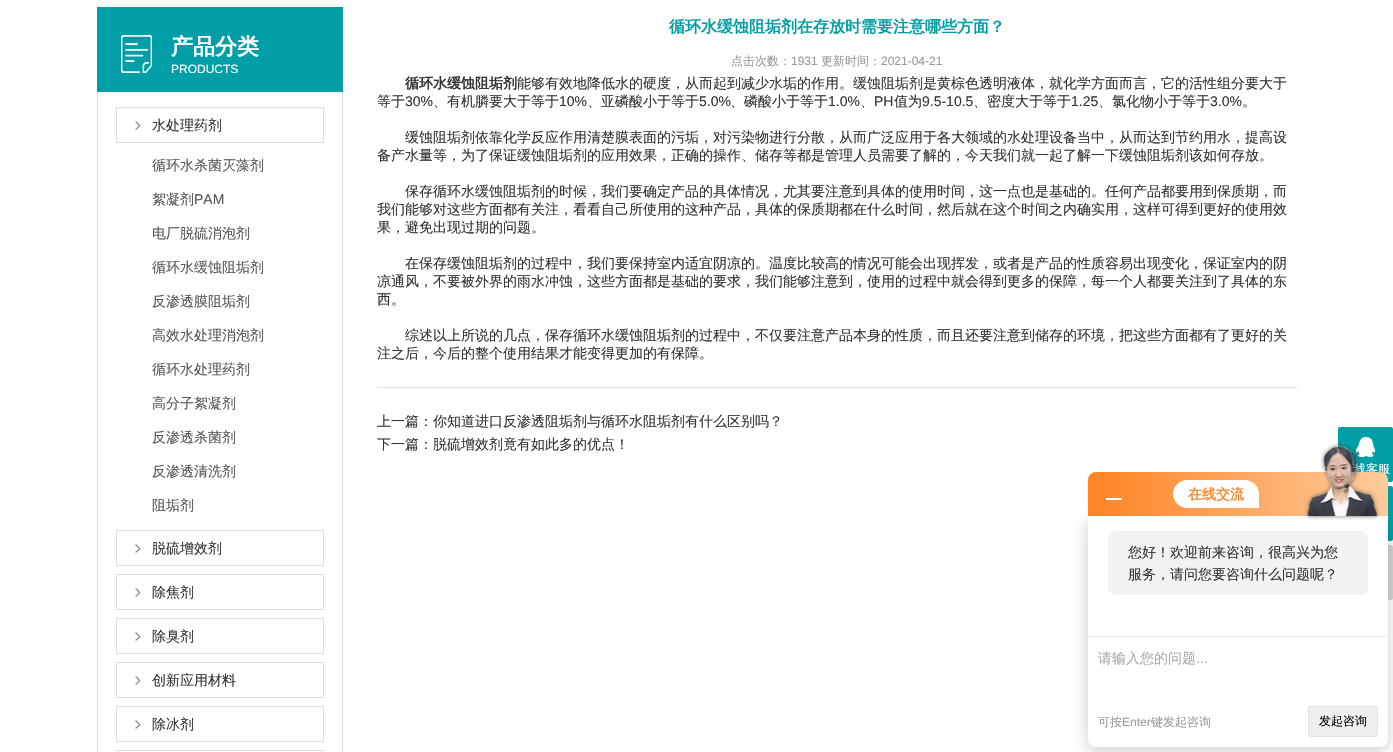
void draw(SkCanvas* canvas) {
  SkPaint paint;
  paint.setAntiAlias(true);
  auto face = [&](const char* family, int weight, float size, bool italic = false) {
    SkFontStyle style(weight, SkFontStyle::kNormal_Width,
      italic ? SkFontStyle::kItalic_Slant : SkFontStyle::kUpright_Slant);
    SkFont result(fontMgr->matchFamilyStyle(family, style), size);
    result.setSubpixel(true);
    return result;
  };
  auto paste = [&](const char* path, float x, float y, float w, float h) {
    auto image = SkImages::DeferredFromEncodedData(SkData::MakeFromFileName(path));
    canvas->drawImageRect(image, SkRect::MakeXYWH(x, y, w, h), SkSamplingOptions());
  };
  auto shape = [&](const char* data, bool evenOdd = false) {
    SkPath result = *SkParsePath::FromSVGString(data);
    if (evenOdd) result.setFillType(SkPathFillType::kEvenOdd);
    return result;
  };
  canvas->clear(0xffffffff);
  paint.setColor(0xff009fa7);
  canvas->drawRect(SkRect::MakeXYWH(97, 7, 246, 85), paint);
  paste("img/1.png", 121, 35, 31, 38);
  paint.setColor(0xffdddddd);
  canvas->drawRect(SkRect::MakeXYWH(342, 92, 1, 660), paint);
  canvas->drawRect(SkRect::MakeXYWH(97, 92, 1, 660), paint);
  paste("img/2.png", 135, 121, 6, 9);
  paint.setStroke(true);
  paint.setStrokeWidth(1);
  canvas->drawRect(SkRect::MakeXYWH(116.5f, 107.5f, 207, 35), paint);
  paste("img/2.png", 135, 544, 6, 9);
  canvas->drawRect(SkRect::MakeXYWH(116.5f, 530.5f, 207, 35), paint);
  paste("img/2.png", 135, 588, 6, 9);
  canvas->drawRect(SkRect::MakeXYWH(116.5f, 574.5f, 207, 35), paint);
  paste("img/2.png", 135, 632, 6, 9);
  canvas->drawRect(SkRect::MakeXYWH(116.5f, 618.5f, 207, 35), paint);
  paste("img/2.png", 135, 676, 6, 9);
  canvas->drawRect(SkRect::MakeXYWH(116.5f, 662.5f, 207, 35), paint);
  paste("img/2.png", 135, 720, 6, 9);
  canvas->drawRect(SkRect::MakeXYWH(116.5f, 706.5f, 207, 35), paint);
  canvas->drawRect(SkRect::MakeXYWH(116.5f, 750.5f, 207, 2), paint);
  paint.setStroke(false);
  paint.setColor(0xffdedede);
  canvas->drawRect(SkRect::MakeXYWH(377, 387, 920, 1), paint);
  paint.setColor(0xff009fa7);
  canvas->drawRoundRect(SkRect::MakeXYWH(1338, 427, 55, 55), 2, 2, paint);
  paste("img/3.png", 1356, 437, 19, 20);
  canvas->drawRoundRect(SkRect::MakeXYWH(1338, 486, 55, 55), 2, 2, paint);
  paint.setColor(0xffd2d3d6);
  canvas->drawRoundRect(SkRect::MakeXYWH(1338, 545, 55, 55), 2, 2, paint);
  paint.setColor(0x33000000);
  paint.setMaskFilter(SkMaskFilter::MakeBlur(kNormal_SkBlurStyle, 8));
  canvas->drawRoundRect(SkRect::MakeXYWH(1088, 520, 300, 231), 8, 8, paint);
  paint.setMaskFilter(nullptr);
  paint.setColor(0xffffffff);
  canvas->drawPath(shape("M1088 516H1388V739C1388 743.5 1384.5 747 1380 747H1096C1091.5 747 1088 743.5 1088 739Z"), paint);
  paint.setColor(0xfff2f2f2);
  canvas->drawRoundRect(SkRect::MakeXYWH(1108, 531, 260, 64), 8, 8, paint);
  paint.setColor(0xffeaeaea);
  canvas->drawRect(SkRect::MakeXYWH(1088, 636, 300, 1), paint);
  paint.setColor(0xfff0efed);
  canvas->drawRoundRect(SkRect::MakeXYWH(1308.5f, 706.5f, 69, 30), 1.5f, 1.5f, paint);
  paint.setStroke(true);
  paint.setColor(0xffe2e2e2);
  canvas->drawRoundRect(SkRect::MakeXYWH(1308.5f, 706.5f, 69, 30), 1.5f, 1.5f, paint);
  auto f0 = face("WenQuanYi Zen Hei", 700, 22);
  paint.setStroke(false);
  paint.setColor(0xffffffff);
  canvas->drawString("产品分类", 171, 54, f0, paint);
  auto f1 = face("Liberation Sans", 400, 12);
  canvas->drawString("PRODUCTS", 171, 73, f1, paint);
  auto f2 = face("WenQuanYi Zen Hei", 500, 14);
  paint.setColor(0xff333333);
  canvas->drawString("水处理药剂", 152, 130, f2, paint);
  paint.setColor(0xff555555);
  canvas->drawString("循环水杀菌灭藻剂", 152, 170, f2, paint);
  canvas->drawString("絮凝剂", 152, 204, f2, paint);
  auto f3 = face("Liberation Sans", 400, 14);
  canvas->drawString("PAM", 194, 204, f3, paint);
  {
    const struct { const char* s; float x, y; } items[] = {
      {"电厂脱硫消泡剂", 152, 238},
      {"循环水缓蚀阻垢剂", 152, 272},
      {"反渗透膜阻垢剂", 152, 306},
      {"高效水处理消泡剂", 152, 340},
      {"循环水处理药剂", 152, 374},
      {"高分子絮凝剂", 152, 408},
      {"反渗透杀菌剂", 152, 442},
      {"反渗透清洗剂", 152, 476},
      {"阻垢剂", 152, 510},
    };
    for (auto [s, x, y] : items) {
      canvas->drawString(s, x, y, f2, paint);
    }
  }
  paint.setColor(0xff333333);
  {
    const struct { const char* s; float x, y; } items[] = {
      {"脱硫增效剂", 152, 553},
      {"除焦剂", 152, 597},
      {"除臭剂", 152, 641},
      {"创新应用材料", 152, 685},
      {"除冰剂", 152, 729},
    };
    for (auto [s, x, y] : items) {
      canvas->drawString(s, x, y, f2, paint);
    }
  }
  auto f4 = face("WenQuanYi Zen Hei", 700, 16);
  paint.setColor(0xff009fa7);
  canvas->drawString("循环水缓蚀阻垢剂在存放时需要注意哪些方面？", 669, 32, f4, paint);
  auto f5 = face("WenQuanYi Zen Hei", 500, 12);
  paint.setColor(0xff999999);
  canvas->drawString("点击次数：", 731, 65, f5, paint);
  canvas->drawString("1931", 791, 65, f1, paint);
  canvas->drawString("更新时间：", 821, 65, f5, paint);
  canvas->drawString("2021-04-21", 881, 65, f1, paint);
  auto f6 = face("WenQuanYi Zen Hei", 700, 14);
  paint.setColor(0xff333333);
  canvas->drawString("循环水缓蚀阻垢剂", 405, 88, f6, paint);
  canvas->drawString("能够有效地降低水的硬度，从而起到减少水垢的作用。缓蚀阻垢剂是黄棕色透明液体，就化学方面而言，它的活性组分要大于", 517, 88, f2, paint);
  canvas->drawString("等于", 377, 106, f2, paint);
  canvas->drawString("30%", 405, 106, f3, paint);
  canvas->drawString("、有机膦要大于等于", 433, 106, f2, paint);
  canvas->drawString("10%", 559, 106, f3, paint);
  canvas->drawString("、亚磷酸小于等于", 587, 106, f2, paint);
  canvas->drawString("5.0%", 699, 106, f3, paint);
  canvas->drawString("、磷酸小于等于", 730, 106, f2, paint);
  canvas->drawString("1.0%", 828, 106, f3, paint);
  canvas->drawString("、", 860, 106, f2, paint);
  canvas->drawString("PH", 874, 106, f3, paint);
  canvas->drawString("值为", 894, 106, f2, paint);
  canvas->drawString("9.5-10.5", 922, 106, f3, paint);
  canvas->drawString("、密度大于等于", 973, 106, f2, paint);
  canvas->drawString("1.25", 1071, 106, f3, paint);
  canvas->drawString("、氯化物小于等于", 1098, 106, f2, paint);
  canvas->drawString("3.0%", 1210, 106, f3, paint);
  {
    const struct { const char* s; float x, y; } items[] = {
      {"。", 1242, 106},
      {"缓蚀阻垢剂依靠化学反应作用清楚膜表面的污垢，对污染物进行分散，从而广泛应用于各大领域的水处理设备当中，从而达到节约用水，提高设", 405, 142},
      {"备产水量等，为了保证缓蚀阻垢剂的应用效果，正确的操作、储存等都是管理人员需要了解的，今天我们就一起了解一下缓蚀阻垢剂该如何存放。", 377, 160},
      {"保存循环水缓蚀阻垢剂的时候，我们要确定产品的具体情况，尤其要注意到具体的使用时间，这一点也是基础的。任何产品都要用到保质期，而", 405, 196},
      {"我们能够对这些方面都有关注，看看自己所使用的这种产品，具体的保质期都在什么时间，然后就在这个时间之内确实用，这样可得到更好的使用效", 377, 214},
      {"果，避免出现过期的问题。", 377, 232},
      {"在保存缓蚀阻垢剂的过程中，我们要保持室内适宜阴凉的。温度比较高的情况可能会出现挥发，或者是产品的性质容易出现变化，保证室内的阴", 405, 268},
      {"凉通风，不要被外界的雨水冲蚀，这些方面都是基础的要求，我们能够注意到，使用的过程中就会得到更多的保障，每一个人都要关注到了具体的东", 377, 286},
      {"西。", 377, 304},
      {"综述以上所说的几点，保存循环水缓蚀阻垢剂的过程中，不仅要注意产品本身的性质，而且还要注意到储存的环境，把这些方面都有了更好的关", 405, 340},
      {"注之后，今后的整个使用结果才能变得更加的有保障。", 377, 358},
      {"上一篇：你知道进口反渗透阻垢剂与循环水阻垢剂有什么区别吗？", 377, 426},
      {"下一篇：脱硫增效剂竟有如此多的优点！", 377, 449},
    };
    for (auto [s, x, y] : items) {
      canvas->drawString(s, x, y, f2, paint);
    }
  }
  paint.setColor(0xffffffff);
  canvas->drawString("线客服", 1354, 473, f5, paint);
  {
    const SkColor colors[] = {0xffff8324, 0xfffecb9c};
    const float stops[] = {0, 1};
    const SkPoint ends[] = {{1088, 494}, {1388, 494}};
    paint.setShader(SkGradientShader::MakeLinear(ends, colors, stops, 2, SkTileMode::kClamp));
    paint.setAlpha(255);
  }
  canvas->drawPath(shape("M1096 472H1380C1384.5 472 1388 475.5 1388 480V516H1088V480C1088 475.5 1091.5 472 1096 472Z"), paint);
  paint.setShader(nullptr);
  paint.setColor(0xffffffff);
  canvas->drawRect(SkRect::MakeXYWH(1106, 498, 16, 2), paint);
  canvas->drawPath(shape("M1187 480H1245C1252.5 480 1259 486.5 1259 494V508H1187C1179.5 508 1173 501.5 1173 494C1173 486.5 1179.5 480 1187 480Z"), paint);
  paint.setColor(0xfffb8b36);
  canvas->drawString("在线交流", 1188, 499, f6, paint);
  paste("img/4.png", 1304, 442, 76, 78);
  paint.setColor(0xff333333);
  canvas->drawString("您好！欢迎前来咨询，很高兴为您", 1128, 557, f2, paint);
  canvas->drawString("服务，请问您要咨询什么问题呢？", 1128, 579, f2, paint);
  paint.setColor(0xffaaaaaa);
  canvas->drawString("请输入您的问题", 1098, 663, f2, paint);
  canvas->drawString("...", 1196, 663, f3, paint);
  paint.setColor(0xff999999);
  canvas->drawString("可按", 1098, 726, f5, paint);
  canvas->drawString("Enter", 1122, 726, f1, paint);
  canvas->drawString("键发起咨询", 1151, 726, f5, paint);
  paint.setColor(0xff000000);
  canvas->drawString("发起咨询", 1319, 725, f5, paint);
}
